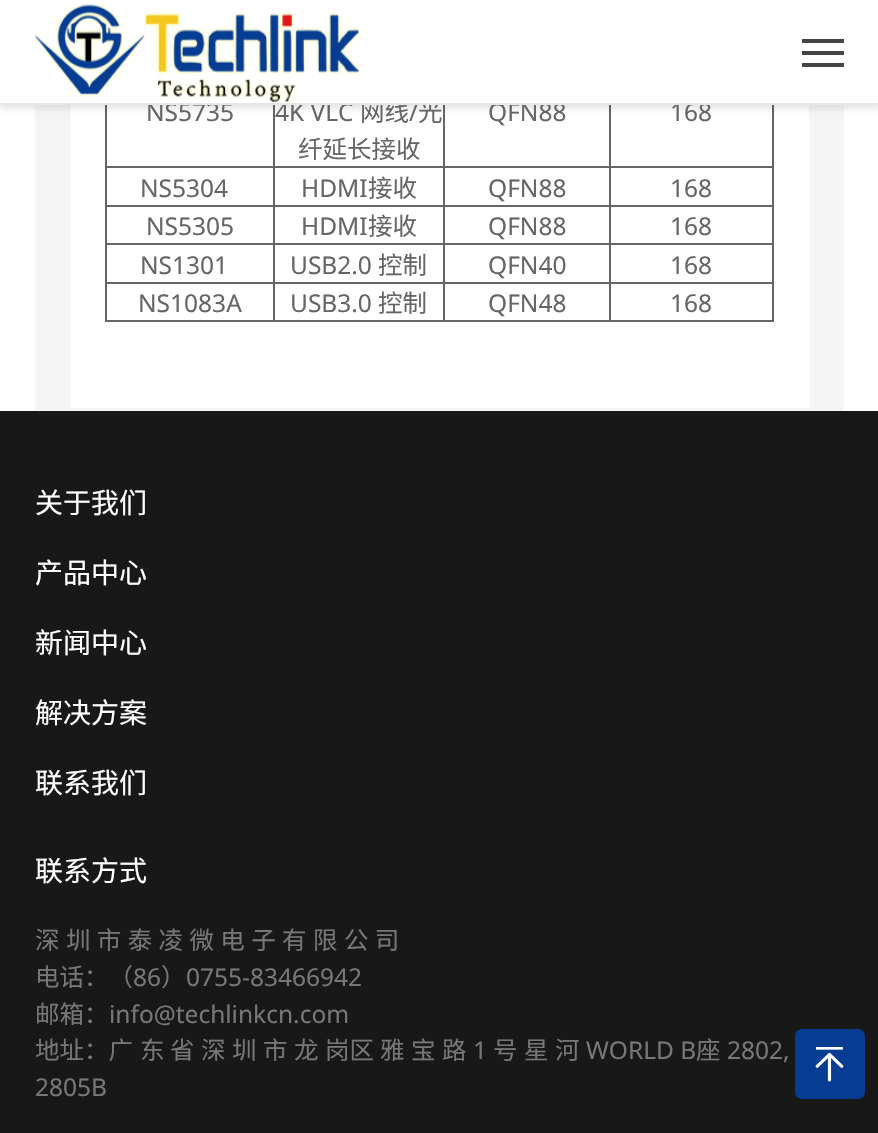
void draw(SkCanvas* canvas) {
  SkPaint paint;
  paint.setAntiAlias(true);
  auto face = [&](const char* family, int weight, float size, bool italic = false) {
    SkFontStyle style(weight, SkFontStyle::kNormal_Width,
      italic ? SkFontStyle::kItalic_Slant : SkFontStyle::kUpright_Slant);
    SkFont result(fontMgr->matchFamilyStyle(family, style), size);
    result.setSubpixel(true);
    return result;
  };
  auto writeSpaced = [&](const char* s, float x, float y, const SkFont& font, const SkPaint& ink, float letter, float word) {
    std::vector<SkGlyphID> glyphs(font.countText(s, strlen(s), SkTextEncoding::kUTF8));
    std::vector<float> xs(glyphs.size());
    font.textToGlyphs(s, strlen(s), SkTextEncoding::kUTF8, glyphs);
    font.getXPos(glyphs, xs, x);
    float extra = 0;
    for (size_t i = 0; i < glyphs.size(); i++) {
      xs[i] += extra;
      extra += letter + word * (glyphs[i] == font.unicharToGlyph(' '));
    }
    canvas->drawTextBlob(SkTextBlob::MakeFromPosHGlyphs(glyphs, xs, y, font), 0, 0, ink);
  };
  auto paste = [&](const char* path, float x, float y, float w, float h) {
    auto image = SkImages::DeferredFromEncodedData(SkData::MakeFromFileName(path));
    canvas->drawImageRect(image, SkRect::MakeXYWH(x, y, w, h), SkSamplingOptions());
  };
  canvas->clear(0xffffffff);
  {
    const struct { float x, y, w, h; SkColor color; } items[] = {
      {35, 105, 809, 306, 0xfff5f5f5},
      {70, 105, 739, 303, 0xffffffff},
      {609, 166, 165, 2, 0xff666666},
      {609, 205, 165, 2, 0xff666666},
      {609, 243, 165, 2, 0xff666666},
      {609, 282, 165, 2, 0xff666666},
      {772, 282, 2, 40, 0xff666666},
      {609, 320, 165, 2, 0xff666666},
      {609, 282, 2, 40, 0xff666666},
      {443, 282, 168, 2, 0xff666666},
      {609, 243, 2, 41, 0xff666666},
      {443, 243, 168, 2, 0xff666666},
      {609, 205, 2, 40, 0xff666666},
      {443, 205, 168, 2, 0xff666666},
      {609, 166, 2, 41, 0xff666666},
      {443, 166, 168, 2, 0xff666666},
      {443, 320, 168, 2, 0xff666666},
      {443, 282, 2, 40, 0xff666666},
      {273, 282, 172, 2, 0xff666666},
      {443, 243, 2, 41, 0xff666666},
      {273, 243, 172, 2, 0xff666666},
      {443, 205, 2, 40, 0xff666666},
      {273, 205, 172, 2, 0xff666666},
      {443, 166, 2, 41, 0xff666666},
      {273, 166, 172, 2, 0xff666666},
      {273, 320, 172, 2, 0xff666666},
      {273, 282, 2, 40, 0xff666666},
      {105, 282, 170, 2, 0xff666666},
      {273, 243, 2, 41, 0xff666666},
      {105, 243, 170, 2, 0xff666666},
      {273, 205, 2, 40, 0xff666666},
      {105, 205, 170, 2, 0xff666666},
      {273, 166, 2, 41, 0xff666666},
      {105, 166, 170, 2, 0xff666666},
      {273, 105, 2, 63, 0xff666666},
      {443, 105, 2, 63, 0xff666666},
      {609, 105, 2, 63, 0xff666666},
      {105, 320, 170, 2, 0xff666666},
      {105, 282, 2, 40, 0xff666666},
      {105, 243, 2, 41, 0xff666666},
      {105, 205, 2, 40, 0xff666666},
      {105, 105, 2, 102, 0xff666666},
      {772, 243, 2, 41, 0xff666666},
      {772, 205, 2, 40, 0xff666666},
      {772, 105, 2, 102, 0xff666666},
    };
    for (auto [x, y, w, h, color] : items) {
      paint.setColor(color);
      canvas->drawRect(SkRect::MakeXYWH(x, y, w, h), paint);
    }
  }
  paint.setColor(0x1a000000);
  paint.setMaskFilter(SkMaskFilter::MakeBlur(kNormal_SkBlurStyle, 3.5f));
  canvas->drawRect(SkRect::MakeXYWH(0, 4, 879, 105), paint);
  paint.setMaskFilter(nullptr);
  paint.setColor(0xff181818);
  canvas->drawRect(SkRect::MakeXYWH(0, 411, 878, 722), paint);
  paint.setColor(0xff063c92);
  canvas->drawRoundRect(SkRect::MakeXYWH(795, 1029, 70, 70), 7, 7, paint);
  paste("img/2.png", 815, 1047, 29, 35);
  auto f0 = face("Noto Sans", 400, 24.5f);
  paint.setColor(0xff666666);
  canvas->drawString("NS5735", 146, 121, f0, paint);
  canvas->drawString("4K VLC", 275, 121, f0, paint);
  auto f1 = face("Noto Sans CJK SC", 400, 24.5f);
  canvas->drawString("网线", 360, 121, f1, paint);
  canvas->drawString("/", 409, 121, f0, paint);
  canvas->drawString("光", 418, 121, f1, paint);
  paint.setColor(0xffffffff);
  canvas->drawRect(SkRect::MakeXYWH(0, 0, 878, 103), paint);
  paste("img/1.png", 35, 4, 324, 98);
  {
    const struct { float x, y, w, h; SkColor color; } items[] = {
      {802, 63, 42, 4, 0xff444444},
      {802, 39, 42, 4, 0xff444444},
      {802, 51, 42, 4, 0xff444444},
    };
    for (auto [x, y, w, h, color] : items) {
      paint.setColor(color);
      canvas->drawRect(SkRect::MakeXYWH(x, y, w, h), paint);
    }
  }
  paint.setColor(0xff666666);
  canvas->drawString("纤延长接收", 298, 158, f1, paint);
  canvas->drawString("QFN88", 488, 121, f0, paint);
  canvas->drawString("168", 670, 121, f0, paint);
  paint.setColor(0xffe6e6e6);
  canvas->drawRect(SkRect::MakeXYWH(0, 103, 878, 2), paint);
  paint.setColor(0xff666666);
  canvas->drawString("NS5304", 140, 197, f0, paint);
  canvas->drawString("HDMI", 301, 197, f0, paint);
  canvas->drawString("接收", 368, 197, f1, paint);
  {
    const struct { const char* s; float x, y; } items[] = {
      {"QFN88", 488, 197},
      {"168", 670, 197},
      {"NS5305", 146, 235},
      {"HDMI", 301, 235},
    };
    for (auto [s, x, y] : items) {
      canvas->drawString(s, x, y, f0, paint);
    }
  }
  canvas->drawString("接收", 368, 235, f1, paint);
  {
    const struct { const char* s; float x, y; } items[] = {
      {"QFN88", 488, 235},
      {"168", 670, 235},
      {"NS1301", 140, 274},
      {"USB2.0", 290, 274},
    };
    for (auto [s, x, y] : items) {
      canvas->drawString(s, x, y, f0, paint);
    }
  }
  canvas->drawString("控制", 378, 274, f1, paint);
  {
    const struct { const char* s; float x, y; } items[] = {
      {"QFN40", 488, 274},
      {"168", 670, 274},
      {"NS1083A", 138, 312},
      {"USB3.0", 290, 312},
    };
    for (auto [s, x, y] : items) {
      canvas->drawString(s, x, y, f0, paint);
    }
  }
  canvas->drawString("控制", 378, 312, f1, paint);
  canvas->drawString("QFN48", 488, 312, f0, paint);
  canvas->drawString("168", 670, 312, f0, paint);
  auto f2 = face("Noto Sans CJK SC", 400, 28);
  paint.setColor(0xffffffff);
  {
    const struct { const char* s; float x, y; } items[] = {
      {"关于我们", 35, 513},
      {"产品中心", 35, 583},
      {"新闻中心", 35, 653},
      {"解决方案", 35, 723},
      {"联系我们", 35, 793},
      {"联系方式", 35, 881},
    };
    for (auto [s, x, y] : items) {
      canvas->drawString(s, x, y, f2, paint);
    }
  }
  paint.setColor(0xff777777);
  writeSpaced("深 圳 市 泰 凌 微 电 子 有 限 公 司", 35, 949, f1, paint, 0, 0.9f);
  canvas->drawString("电话：（", 35, 986, f1, paint);
  canvas->drawString("86", 133, 986, f0, paint);
  canvas->drawString("）", 161, 986, f1, paint);
  canvas->drawString("0755-83466942", 186, 986, f0, paint);
  canvas->drawString("邮箱：", 35, 1023, f1, paint);
  canvas->drawString("info@techlinkcn.com", 109, 1023, f0, paint);
  {
    const struct { const char* s; float x, y; } items[] = {
      {"地址：广", 35, 1059},
      {"东", 140, 1059},
      {"省", 170, 1059},
      {"深", 201, 1059},
      {"圳", 232, 1059},
      {"市", 263, 1059},
      {"龙", 294, 1059},
      {"岗区", 325, 1059},
      {"雅", 380, 1059},
      {"宝", 411, 1059},
      {"路", 442, 1059},
    };
    for (auto [s, x, y] : items) {
      canvas->drawString(s, x, y, f1, paint);
    }
  }
  canvas->drawString("1", 473, 1059, f0, paint);
  {
    const struct { const char* s; float x, y; } items[] = {
      {"号", 493, 1059},
      {"星", 524, 1059},
      {"河", 555, 1059},
    };
    for (auto [s, x, y] : items) {
      canvas->drawString(s, x, y, f1, paint);
    }
  }
  canvas->drawString("WORLD B", 586, 1059, f0, paint);
  canvas->drawString("座", 696, 1059, f1, paint);
  canvas->drawString("2802,", 727, 1059, f0, paint);
  canvas->drawString("2805B", 35, 1096, f0, paint);
}
